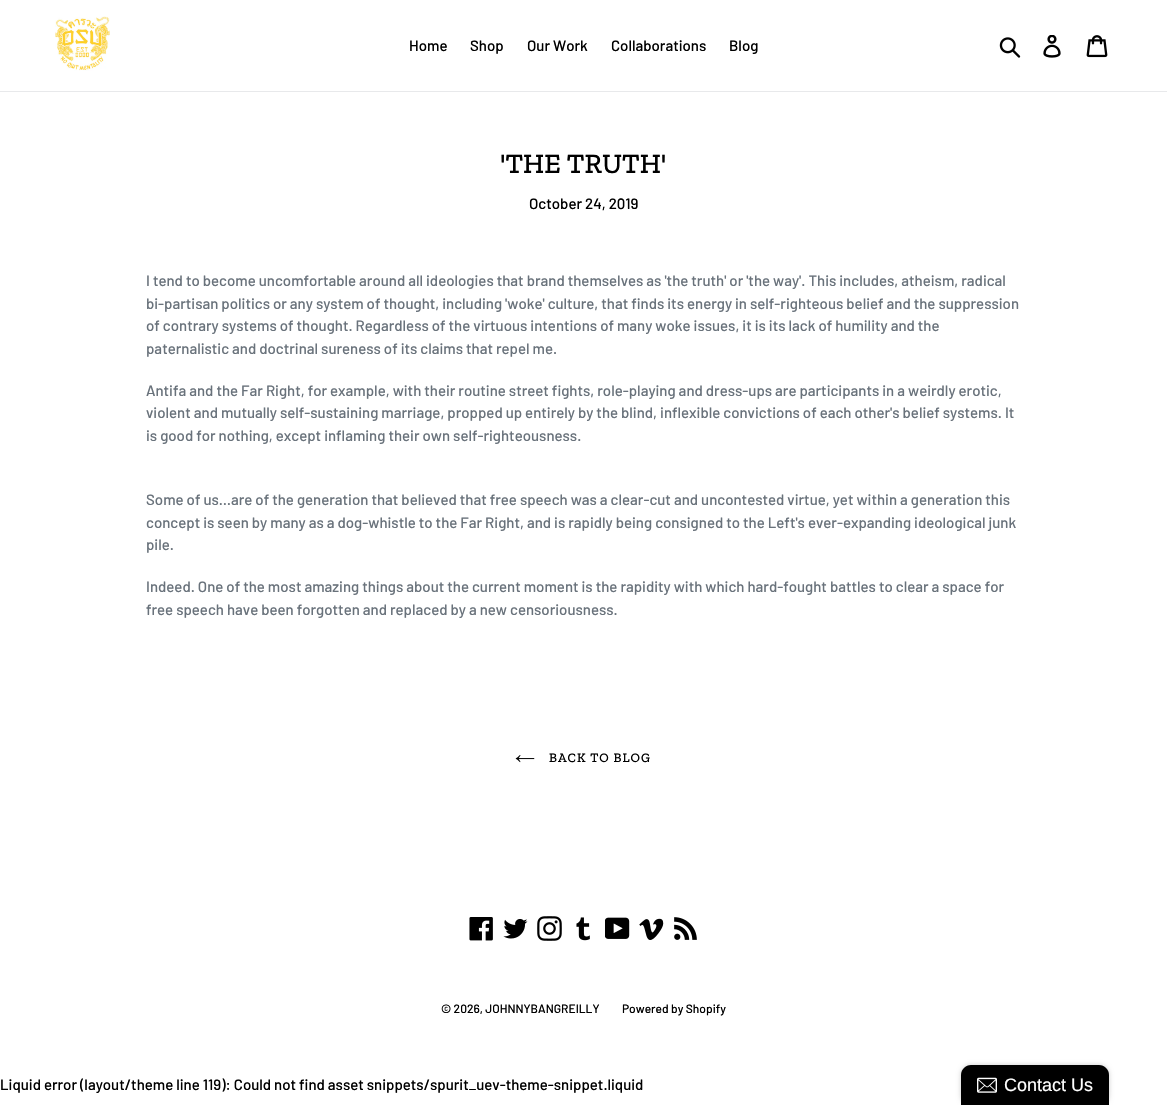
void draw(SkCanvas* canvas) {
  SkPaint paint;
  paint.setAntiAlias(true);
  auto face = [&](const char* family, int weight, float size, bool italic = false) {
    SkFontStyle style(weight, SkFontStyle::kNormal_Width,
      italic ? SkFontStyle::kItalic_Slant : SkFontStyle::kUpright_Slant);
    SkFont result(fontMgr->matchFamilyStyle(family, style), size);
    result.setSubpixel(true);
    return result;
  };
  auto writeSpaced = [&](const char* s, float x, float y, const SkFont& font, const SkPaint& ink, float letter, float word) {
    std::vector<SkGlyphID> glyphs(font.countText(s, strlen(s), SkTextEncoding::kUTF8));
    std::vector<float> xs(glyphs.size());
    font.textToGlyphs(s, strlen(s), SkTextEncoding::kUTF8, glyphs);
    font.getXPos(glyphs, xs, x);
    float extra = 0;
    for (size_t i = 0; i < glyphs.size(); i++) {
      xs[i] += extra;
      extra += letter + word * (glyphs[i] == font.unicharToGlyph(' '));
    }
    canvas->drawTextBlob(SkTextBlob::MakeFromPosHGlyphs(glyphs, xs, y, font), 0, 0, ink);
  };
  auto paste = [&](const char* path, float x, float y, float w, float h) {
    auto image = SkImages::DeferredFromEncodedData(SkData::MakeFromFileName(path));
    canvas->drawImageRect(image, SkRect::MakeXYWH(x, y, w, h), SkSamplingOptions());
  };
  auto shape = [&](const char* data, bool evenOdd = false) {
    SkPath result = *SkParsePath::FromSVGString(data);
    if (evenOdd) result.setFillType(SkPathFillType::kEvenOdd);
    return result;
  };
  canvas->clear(0xffffffff);
  paint.setColor(0xffe8e9eb);
  canvas->drawRect(SkRect::MakeXYWH(0, 91, 1167, 1), paint);
  paste("img/1.png", 55, 16, 55, 55);
  paste("img/2.png", 999, 37, 22, 21);
  paste("img/3.png", 1043, 35, 18, 23);
  paste("img/4.png", 1086, 35, 22, 23);
  paste("img/5.png", 515, 755, 20, 8);
  paste("img/6.png", 469, 917, 24, 24);
  paste("img/7.png", 503, 919, 25, 20);
  paste("img/8.png", 537, 916, 25, 25);
  paste("img/9.png", 576, 917, 14, 24);
  paste("img/10.png", 605, 917, 25, 22);
  paste("img/11.png", 639, 918, 25, 22);
  paste("img/12.png", 674, 917, 23, 23);
  paint.setColor(0x33000000);
  paint.setMaskFilter(SkMaskFilter::MakeBlur(kNormal_SkBlurStyle, 2.5f));
  canvas->drawRoundRect(SkRect::MakeXYWH(961, 1065, 148, 40), 10, 10, paint);
  paint.setMaskFilter(nullptr);
  paint.setColor(0xff000000);
  canvas->drawPath(shape("M971 1065H1099C1104.5 1065 1109 1069.5 1109 1075V1105H961V1075C961 1069.5 965.5 1065 971 1065Z"), paint);
  paste("img/13.png", 977, 1077, 20, 16);
  auto f0 = face("Barlow", 500, 15);
  {
    const struct { const char* s; float x, y; } items[] = {
      {"Home", 409, 51},
      {"Shop", 470, 51},
      {"Our Work", 527, 51},
      {"Collaborations", 611, 51},
      {"Blog", 729, 51},
    };
    for (auto [s, x, y] : items) {
      canvas->drawString(s, x, y, f0, paint);
    }
  }
  auto f1 = face("Zilla Slab", 500, 28);
  canvas->drawString("'THE TRUTH'", 500, 173, f1, paint);
  canvas->drawString("October 24, 2019", 529, 209, f0, paint);
  paint.setColor(0xff69727b);
  {
    const struct { const char* s; float x, y; } items[] = {
      {"I tend to become uncomfortable around all ideologies that brand themselves as 'the truth' or 'the way'. This includes, atheism, radical", 146, 286},
      {"bi-partisan politics or any system of thought, including 'woke' culture, that finds its energy in self-righteous belief and the suppression", 146, 309},
      {"of contrary systems of thought. Regardless of the virtuous intentions of many woke issues, it is its lack of humility and the", 146, 331},
      {"paternalistic and doctrinal sureness of its claims that repel me.", 146, 354},
      {"Antifa and the Far Right, for example, with their routine street fights, role-playing and dress-ups are participants in a weirdly erotic,", 146, 396},
      {"violent and mutually self-sustaining marriage, propped up entirely by the blind, inflexible convictions of each other's belief systems. It", 146, 418},
      {"is good for nothing, except inflaming their own self-righteousness.", 146, 441},
      {"Some of us…are of the generation that believed that free speech was a clear-cut and uncontested virtue, yet within a generation this", 146, 505},
      {"concept is seen by many as a dog-whistle to the Far Right, and is rapidly being consigned to the Left's ever-expanding ideological junk", 146, 528},
      {"pile.", 146, 550},
      {"Indeed. One of the most amazing things about the current moment is the rapidity with which hard-fought battles to clear a space for", 146, 592},
      {"free speech have been forgotten and replaced by a new censoriousness.", 146, 615},
    };
    for (auto [s, x, y] : items) {
      canvas->drawString(s, x, y, f0, paint);
    }
  }
  auto f2 = face("Zilla Slab", 500, 13);
  paint.setColor(0xff000000);
  writeSpaced("BACK TO BLOG", 549, 762, f2, paint, 1, 0);
  auto f3 = face("Barlow", 500, 12);
  canvas->drawString("© 2026, JOHNNYBANGREILLY", 441, 1013, f3, paint);
  canvas->drawString("Powered by Shopify", 622, 1013, f3, paint);
  canvas->drawString("Liquid error (layout/theme line 119): Could not find asset snippets/spurit_uev-theme-snippet.liquid", 0, 1090, f0, paint);
  auto f4 = face("Liberation Sans", 400, 18);
  paint.setColor(0xffffffff);
  canvas->drawString("Contact Us", 1004, 1091, f4, paint);
}
